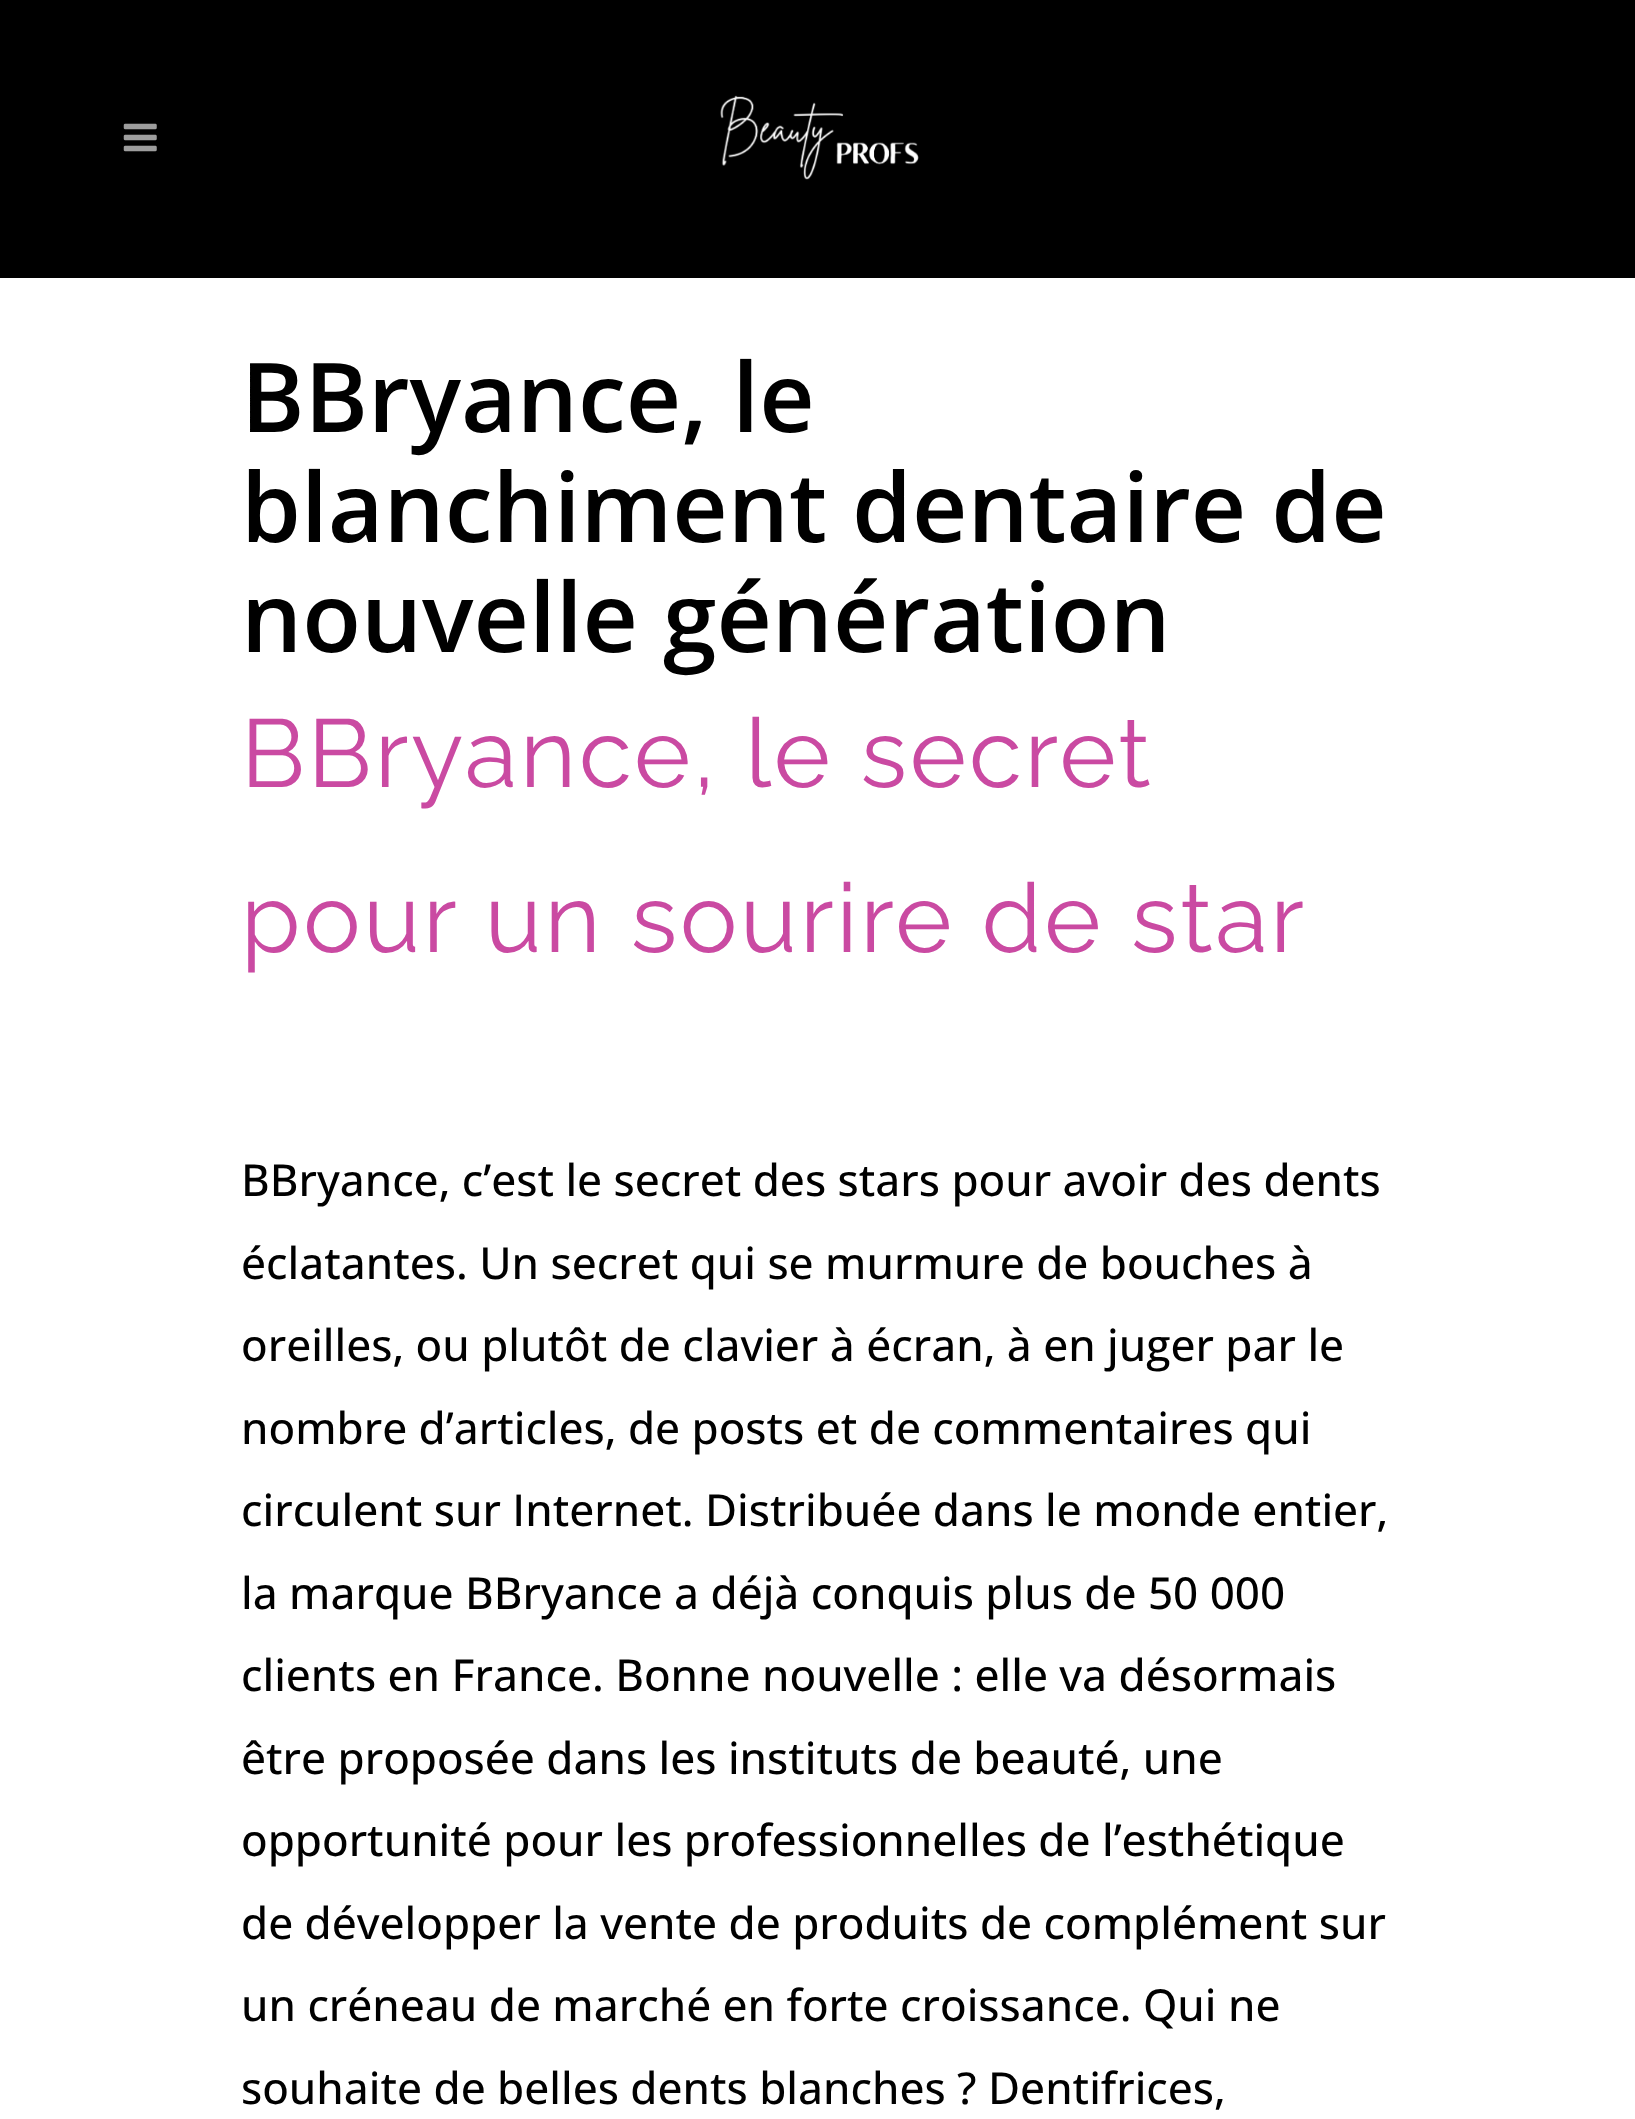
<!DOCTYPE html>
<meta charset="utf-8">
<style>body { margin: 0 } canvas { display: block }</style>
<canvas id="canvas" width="1635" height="2119"></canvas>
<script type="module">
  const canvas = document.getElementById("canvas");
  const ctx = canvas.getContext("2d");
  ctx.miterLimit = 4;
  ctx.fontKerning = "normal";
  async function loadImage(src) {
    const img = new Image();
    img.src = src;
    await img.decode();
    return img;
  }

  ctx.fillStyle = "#ffffff";
  ctx.fillRect(0, 0, 1635, 2119);
  ctx.fillStyle = "#000000";
  ctx.fillRect(0, 0, 1635, 278);
  ctx.drawImage(await loadImage("img1.png"), 123, 123, 34, 29);
  ctx.drawImage(await loadImage("img2.png"), 720, 95, 199, 85);
  ctx.font = "600 96.25px Open Sans";
  ctx.fillText("BBryance, le", 241, 432);
  ctx.fillText("blanchiment dentaire de", 241, 542);
  ctx.fillText("nouvelle génération", 241, 652);
  ctx.letterSpacing = "2.75px";
  ctx.font = "100 96.25px Raleway";
  ctx.fillStyle = "#ca4aa2";
  ctx.fillText("BBryance, le secret", 241, 787);
  ctx.fillText("pour un sourire de star", 241, 952);
  ctx.letterSpacing = "0px";
  ctx.font = "500 44px Open Sans";
  ctx.fillStyle = "#000000";
  ctx.fillText("BBryance, c’est le secret des stars pour avoir des dents", 241, 1196);
  ctx.fillText("éclatantes. Un secret qui se murmure de bouches à", 241, 1279);
  ctx.fillText("oreilles, ou plutôt de clavier à écran, à en juger par le", 241, 1361);
  ctx.fillText("nombre d’articles, de posts et de commentaires qui", 241, 1444);
  ctx.fillText("circulent sur Internet. Distribuée dans le monde entier,", 241, 1526);
  ctx.fillText("la marque BBryance a déjà conquis plus de 50 000", 241, 1609);
  ctx.fillText("clients en France. Bonne nouvelle : elle va désormais", 241, 1691);
  ctx.fillText("être proposée dans les instituts de beauté, une", 241, 1774);
  ctx.fillText("opportunité pour les professionnelles de l’esthétique", 241, 1856);
  ctx.fillText("de développer la vente de produits de complément sur", 241, 1939);
  ctx.fillText("un créneau de marché en forte croissance. Qui ne", 241, 2021);
  ctx.fillText("souhaite de belles dents blanches ? Dentifrices,", 241, 2104);
</script>
